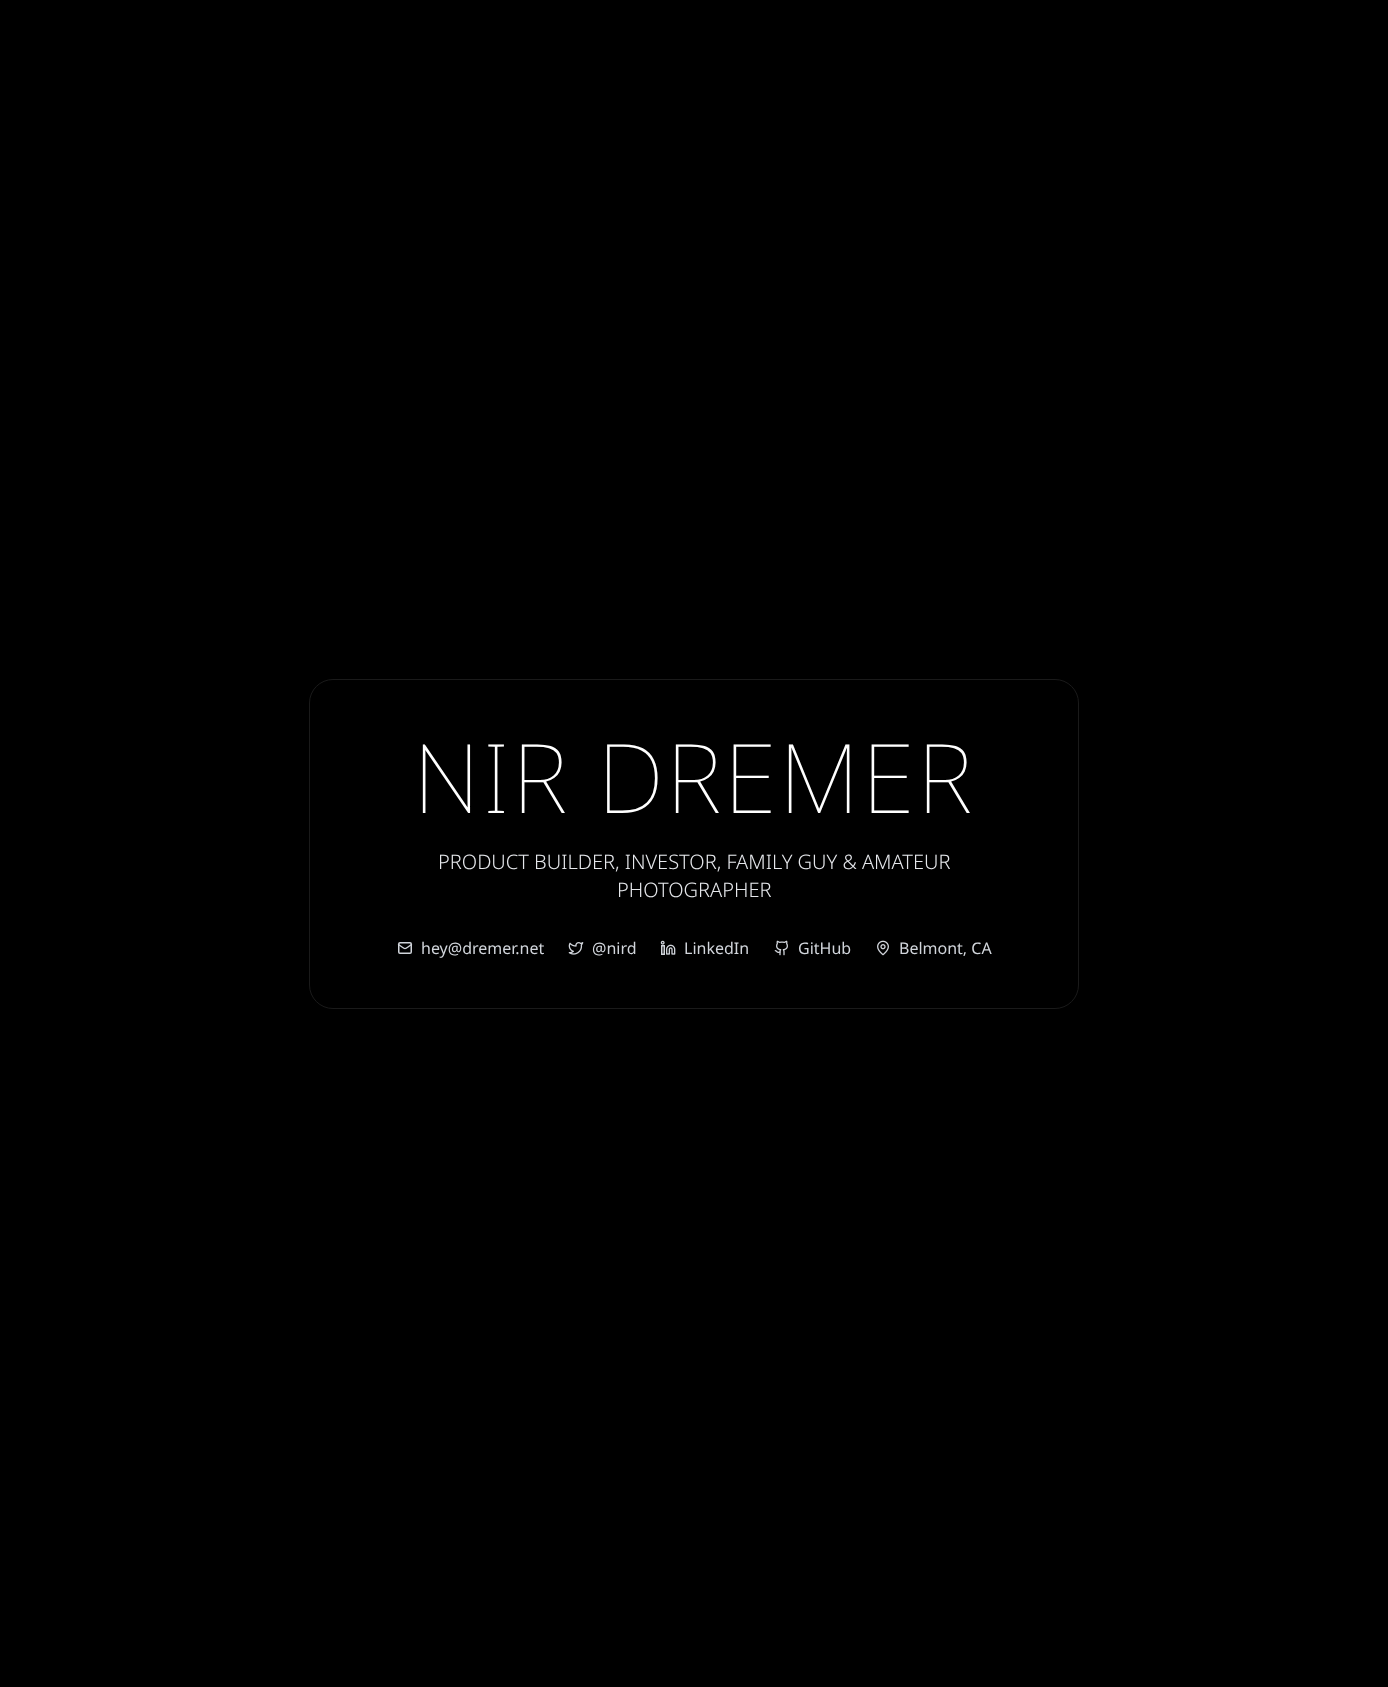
<!DOCTYPE html>
<meta charset="utf-8">
<style>body { margin: 0 } canvas { display: block }</style>
<canvas id="canvas" width="1388" height="1687"></canvas>
<script type="module">
  const canvas = document.getElementById("canvas");
  const ctx = canvas.getContext("2d");
  ctx.miterLimit = 4;
  ctx.fontKerning = "normal";
  async function loadImage(src) {
    const img = new Image();
    img.src = src;
    await img.decode();
    return img;
  }

  ctx.fillStyle = "#000000";
  ctx.fillRect(0, 0, 1388, 1687);
  ctx.beginPath();
  ctx.roundRect(309.5, 679.5, 769, 329, 23.5);
  ctx.strokeStyle = "#1a1a1a";
  ctx.stroke();
  ctx.letterSpacing = "2.4px";
  ctx.font = "100 96px Noto Sans";
  ctx.fillStyle = "#ffffff";
  ctx.fillText("NIR DREMER", 413, 813);
  ctx.letterSpacing = "0px";
  ctx.font = "300 20px Noto Sans";
  ctx.fillStyle = "#e5e7eb";
  ctx.fillText("PRODUCT BUILDER, INVESTOR, FAMILY GUY & AMATEUR", 438, 869);
  ctx.fillText("PHOTOGRAPHER", 617, 897);
  ctx.beginPath();
  ctx.roundRect(398.75, 942.75, 12.5, 10.5, 1.25);
  ctx.strokeStyle = "#d1d5db";
  ctx.lineWidth = 1.5;
  ctx.stroke();
  ctx.beginPath();
  ctx.moveTo(411.5, 944.5);
  ctx.bezierCurveTo(403.5, 950, 406.5, 950, 398.5, 944.5);
  ctx.lineWidth = 1.3;
  ctx.lineCap = "round";
  ctx.lineJoin = "round";
  ctx.stroke();
  ctx.font = "16px Noto Sans";
  ctx.fillStyle = "#d1d5db";
  ctx.fillText("hey@dremer.net", 421, 954);
  ctx.drawImage(await loadImage("img1.png"), 568, 942, 16, 13);
  ctx.fillText("@nird", 592, 954);
  ctx.drawImage(await loadImage("img2.png"), 660, 940, 16, 15);
  ctx.fillText("LinkedIn", 684, 954);
  ctx.drawImage(await loadImage("img3.png"), 774, 940, 14, 16);
  ctx.fillText("GitHub", 798, 954);
  ctx.drawImage(await loadImage("img4.png"), 877, 940, 12, 16);
  ctx.fillText("Belmont, CA", 899, 954);
</script>
